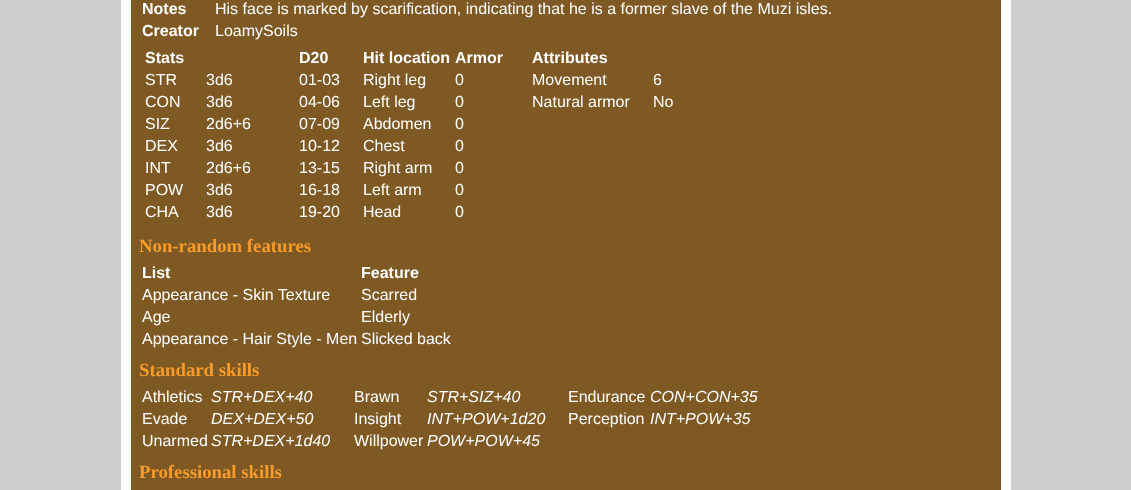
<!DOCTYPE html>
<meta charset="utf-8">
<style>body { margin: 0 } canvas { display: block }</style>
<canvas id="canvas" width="1131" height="490"></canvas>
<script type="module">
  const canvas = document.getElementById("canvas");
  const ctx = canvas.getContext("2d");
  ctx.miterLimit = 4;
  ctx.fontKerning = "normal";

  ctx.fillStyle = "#cecece";
  ctx.fillRect(0, 0, 1131, 490);
  ctx.fillStyle = "#ffffff";
  ctx.fillRect(121, 0, 890, 490);
  ctx.fillStyle = "#7f5924";
  ctx.fillRect(131, 0, 870, 490);
  ctx.font = "bold 16px Liberation Sans";
  ctx.fillStyle = "#ffffff";
  ctx.fillText("Notes", 142, 14);
  ctx.font = "16px Liberation Sans";
  ctx.fillText("His face is marked by scarification, indicating that he is a former slave of the Muzi isles.", 215, 14);
  ctx.font = "bold 16px Liberation Sans";
  ctx.fillText("Creator", 142, 36);
  ctx.font = "16px Liberation Sans";
  ctx.fillText("LoamySoils", 215, 36);
  ctx.font = "bold 16px Liberation Sans";
  ctx.fillText("Stats", 145, 63);
  ctx.font = "16px Liberation Sans";
  ctx.fillText("STR", 145, 85);
  ctx.fillText("3d6", 206, 85);
  ctx.fillText("CON", 145, 107);
  ctx.fillText("3d6", 206, 107);
  ctx.fillText("SIZ", 145, 129);
  ctx.fillText("2d6+6", 206, 129);
  ctx.fillText("DEX", 145, 151);
  ctx.fillText("3d6", 206, 151);
  ctx.fillText("INT", 145, 173);
  ctx.fillText("2d6+6", 206, 173);
  ctx.fillText("POW", 145, 195);
  ctx.fillText("3d6", 206, 195);
  ctx.fillText("CHA", 145, 217);
  ctx.fillText("3d6", 206, 217);
  ctx.font = "bold 16px Liberation Sans";
  ctx.fillText("D20", 299, 63);
  ctx.fillText("Hit location", 363, 63);
  ctx.fillText("Armor", 455, 63);
  ctx.font = "16px Liberation Sans";
  ctx.fillText("01-03", 299, 85);
  ctx.fillText("Right leg", 363, 85);
  ctx.fillText("0", 455, 85);
  ctx.fillText("04-06", 299, 107);
  ctx.fillText("Left leg", 363, 107);
  ctx.fillText("0", 455, 107);
  ctx.fillText("07-09", 299, 129);
  ctx.fillText("Abdomen", 363, 129);
  ctx.fillText("0", 455, 129);
  ctx.fillText("10-12", 299, 151);
  ctx.fillText("Chest", 363, 151);
  ctx.fillText("0", 455, 151);
  ctx.fillText("13-15", 299, 173);
  ctx.fillText("Right arm", 363, 173);
  ctx.fillText("0", 455, 173);
  ctx.fillText("16-18", 299, 195);
  ctx.fillText("Left arm", 363, 195);
  ctx.fillText("0", 455, 195);
  ctx.fillText("19-20", 299, 217);
  ctx.fillText("Head", 363, 217);
  ctx.fillText("0", 455, 217);
  ctx.font = "bold 16px Liberation Sans";
  ctx.fillText("Attributes", 532, 63);
  ctx.font = "16px Liberation Sans";
  ctx.fillText("Movement", 532, 85);
  ctx.fillText("6", 653, 85);
  ctx.fillText("Natural armor", 532, 107);
  ctx.fillText("No", 653, 107);
  ctx.font = "bold 18.75px Liberation Serif";
  ctx.fillStyle = "#f99c2a";
  ctx.fillText("Non-random features", 139, 252);
  ctx.font = "bold 16px Liberation Sans";
  ctx.fillStyle = "#ffffff";
  ctx.fillText("List", 142, 278);
  ctx.fillText("Feature", 361, 278);
  ctx.font = "16px Liberation Sans";
  ctx.fillText("Appearance - Skin Texture", 142, 300);
  ctx.fillText("Scarred", 361, 300);
  ctx.fillText("Age", 142, 322);
  ctx.fillText("Elderly", 361, 322);
  ctx.fillText("Appearance - Hair Style - Men", 142, 344);
  ctx.fillText("Slicked back", 361, 344);
  ctx.font = "bold 18.75px Liberation Serif";
  ctx.fillStyle = "#f99c2a";
  ctx.fillText("Standard skills", 139, 376);
  ctx.font = "16px Liberation Sans";
  ctx.fillStyle = "#ffffff";
  ctx.fillText("Athletics", 142, 402);
  ctx.font = "italic 16px Liberation Sans";
  ctx.fillText("STR+DEX+40", 211, 402);
  ctx.font = "16px Liberation Sans";
  ctx.fillText("Brawn", 354, 402);
  ctx.font = "italic 16px Liberation Sans";
  ctx.fillText("STR+SIZ+40", 427, 402);
  ctx.font = "16px Liberation Sans";
  ctx.fillText("Endurance", 568, 402);
  ctx.font = "italic 16px Liberation Sans";
  ctx.fillText("CON+CON+35", 650, 402);
  ctx.font = "16px Liberation Sans";
  ctx.fillText("Evade", 142, 424);
  ctx.font = "italic 16px Liberation Sans";
  ctx.fillText("DEX+DEX+50", 211, 424);
  ctx.font = "16px Liberation Sans";
  ctx.fillText("Insight", 354, 424);
  ctx.font = "italic 16px Liberation Sans";
  ctx.fillText("INT+POW+1d20", 427, 424);
  ctx.font = "16px Liberation Sans";
  ctx.fillText("Perception", 568, 424);
  ctx.font = "italic 16px Liberation Sans";
  ctx.fillText("INT+POW+35", 650, 424);
  ctx.font = "16px Liberation Sans";
  ctx.fillText("Unarmed", 142, 446);
  ctx.font = "italic 16px Liberation Sans";
  ctx.fillText("STR+DEX+1d40", 211, 446);
  ctx.font = "16px Liberation Sans";
  ctx.fillText("Willpower", 354, 446);
  ctx.font = "italic 16px Liberation Sans";
  ctx.fillText("POW+POW+45", 427, 446);
  ctx.font = "bold 18.75px Liberation Serif";
  ctx.fillStyle = "#f99c2a";
  ctx.fillText("Professional skills", 139, 478);
</script>
